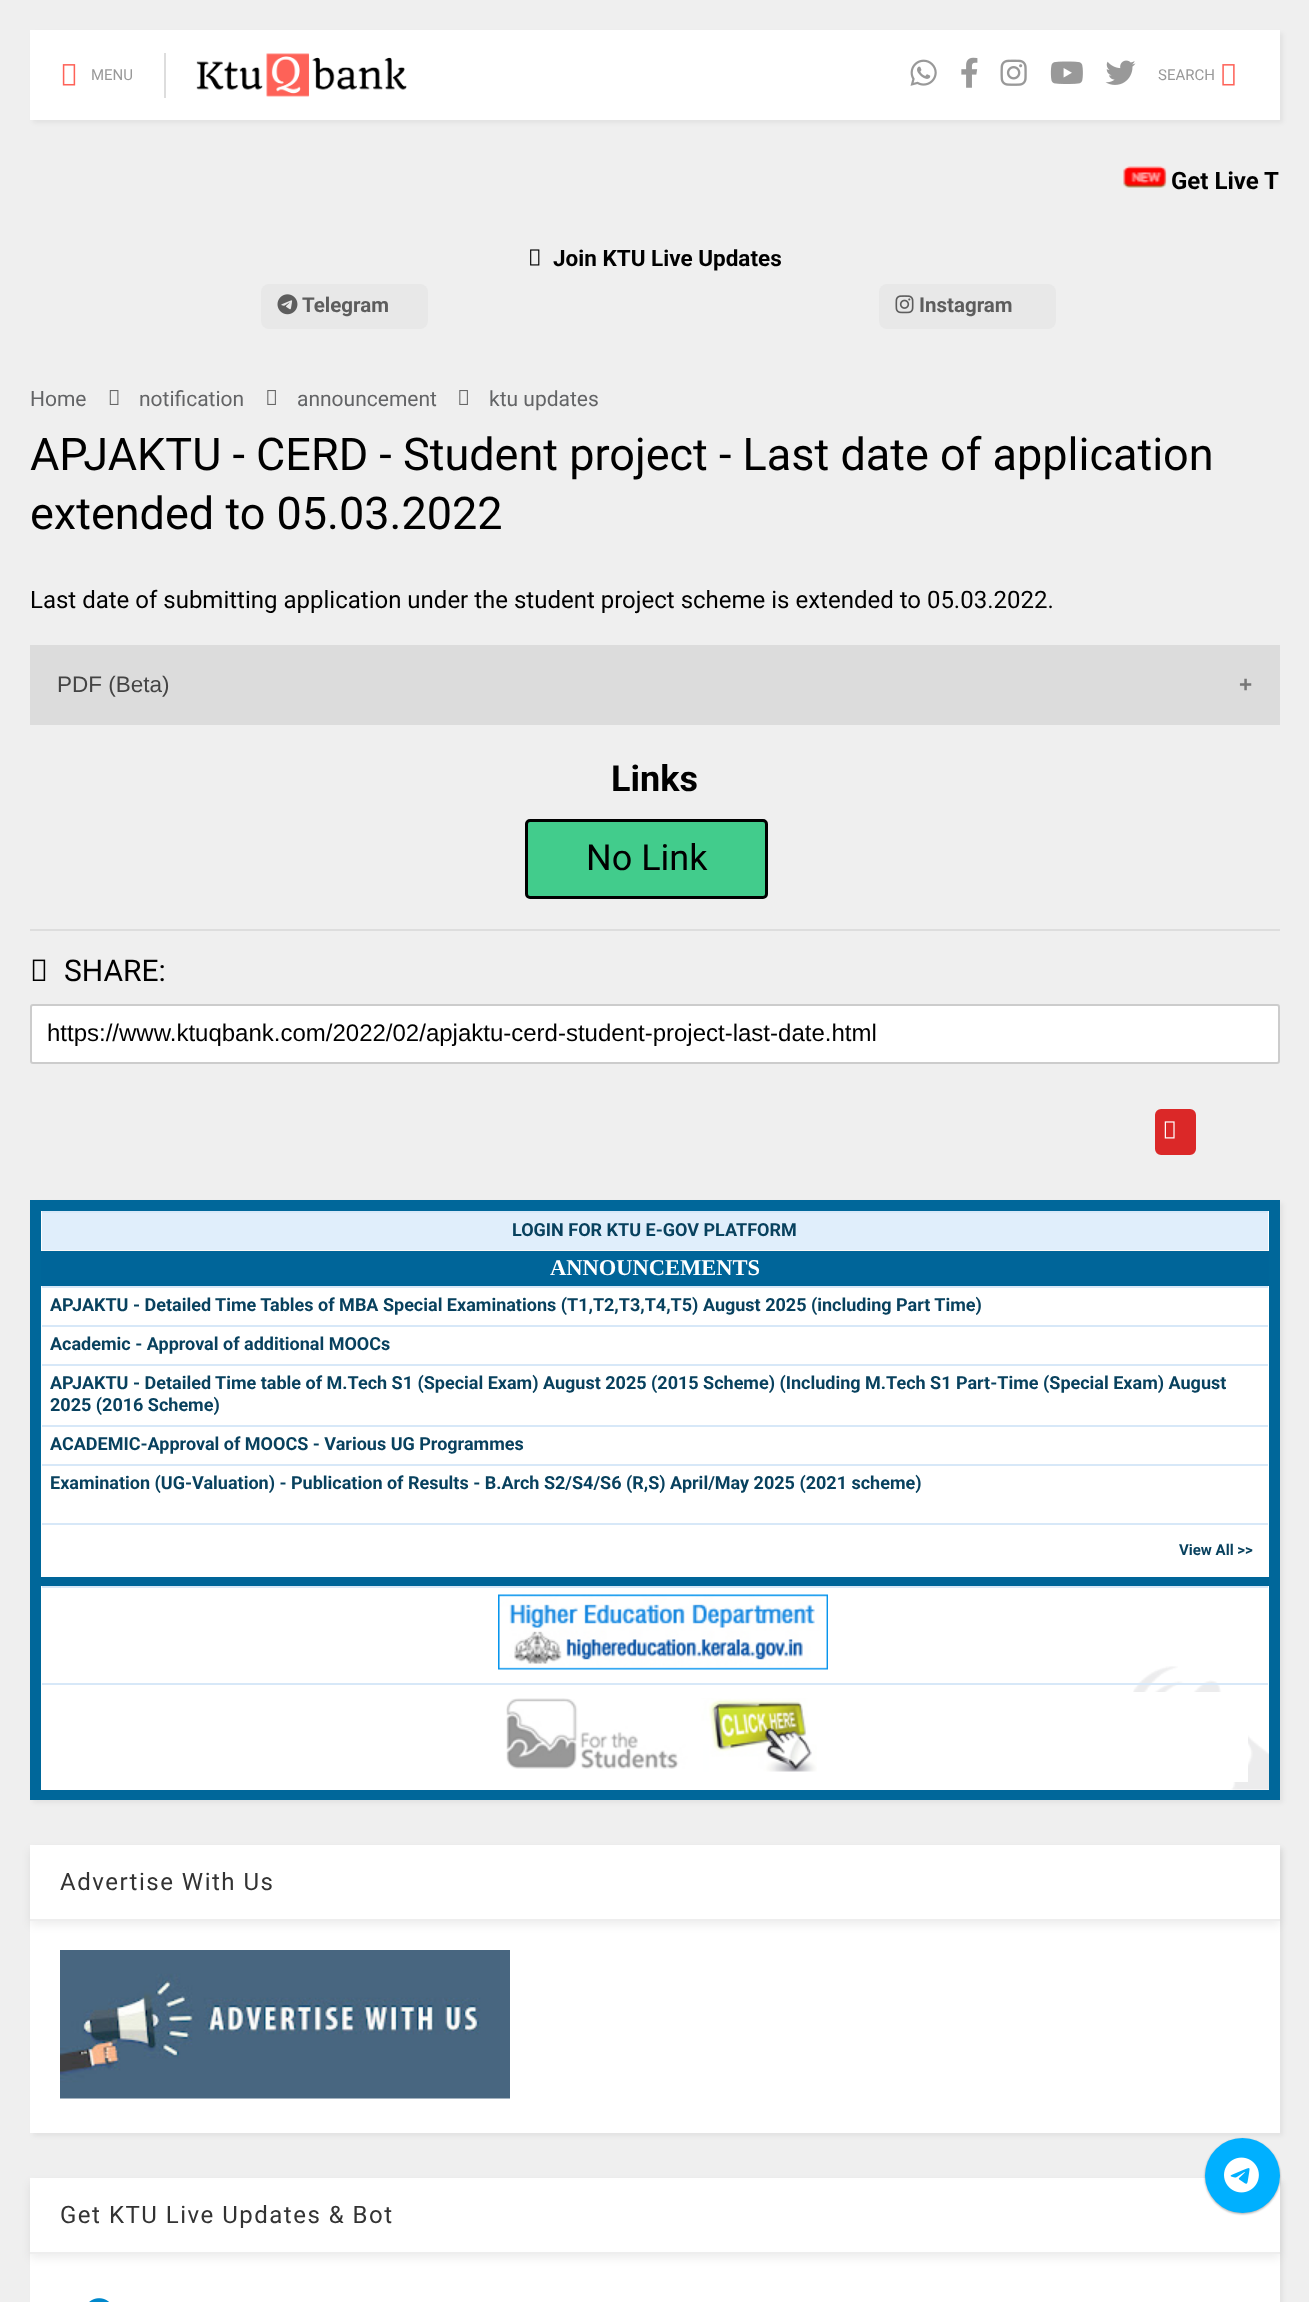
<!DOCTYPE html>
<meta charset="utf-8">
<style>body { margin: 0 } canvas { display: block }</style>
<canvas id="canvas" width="1309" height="2302"></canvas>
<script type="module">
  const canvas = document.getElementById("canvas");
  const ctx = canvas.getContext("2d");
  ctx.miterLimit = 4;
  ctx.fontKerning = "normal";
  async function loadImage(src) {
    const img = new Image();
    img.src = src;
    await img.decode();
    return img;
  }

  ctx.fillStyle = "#efefef";
  ctx.fillRect(0, 0, 1309, 2302);
  ctx.fillStyle = "rgba(0, 0, 0, 0.05)";
  ctx.filter = "blur(2px)";
  ctx.beginPath();
  ctx.rect(33, 33, 1250, 90);
  ctx.fill();
  ctx.filter = "none";
  ctx.fillStyle = "#ffffff";
  ctx.fillRect(30, 30, 1250, 90);
  ctx.drawImage(await loadImage("img1.png"), 62, 64, 14, 22);
  ctx.font = "15px Roboto";
  ctx.fillStyle = "#999999";
  ctx.fillText("MENU", 91, 80);
  ctx.fillStyle = "#dddddd";
  ctx.fillRect(164, 53, 2, 45);
  ctx.drawImage(await loadImage("img2.png"), 196, 53, 211, 44);
  ctx.drawImage(await loadImage("img3.png"), 910, 59, 27, 27);
  ctx.drawImage(await loadImage("img4.png"), 961, 57, 17, 31);
  ctx.drawImage(await loadImage("img5.png"), 1000, 59, 27, 27);
  ctx.drawImage(await loadImage("img6.png"), 1050, 61, 33, 23);
  ctx.drawImage(await loadImage("img7.png"), 1105, 60, 31, 25);
  ctx.fillStyle = "#999999";
  ctx.fillText("SEARCH", 1158, 80);
  ctx.drawImage(await loadImage("img8.png"), 1222, 64, 13, 22);
  ctx.drawImage(await loadImage("img9.png"), 1123, 166, 44, 22);
  ctx.font = "bold 24px Roboto";
  ctx.fillStyle = "#000000";
  ctx.fillText("Get Live T", 1171, 189);
  ctx.drawImage(await loadImage("img10.png"), 530, 249, 10, 17);
  ctx.font = "bold 22.5px Roboto";
  ctx.fillText("Join KTU Live Updates", 553, 266);
  ctx.fillStyle = "#e8e8e8";
  ctx.beginPath();
  ctx.roundRect(261, 284, 167, 45, 8);
  ctx.fill();
  ctx.drawImage(await loadImage("img11.png"), 277, 294, 21, 21);
  ctx.font = "bold 20.5px Roboto";
  ctx.fillStyle = "#5d5d5d";
  ctx.fillText("Telegram", 302, 312);
  ctx.fillStyle = "#e8e8e8";
  ctx.beginPath();
  ctx.roundRect(879, 284, 177, 45, 8);
  ctx.fill();
  ctx.drawImage(await loadImage("img12.png"), 895, 295, 19, 19);
  ctx.fillStyle = "#5d5d5d";
  ctx.fillText("Instagram", 919, 312);
  ctx.fillStyle = "rgba(0, 0, 0, 0.05)";
  ctx.filter = "blur(2px)";
  ctx.beginPath();
  ctx.rect(33, 2181, 1250, 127);
  ctx.fill();
  ctx.filter = "none";
  ctx.fillStyle = "#ffffff";
  ctx.fillRect(30, 2178, 1250, 124);
  ctx.fillStyle = "rgba(0, 0, 0, 0.24)";
  ctx.filter = "blur(1px)";
  ctx.beginPath();
  ctx.roundRect(1205, 2139, 75, 75, 37.5);
  ctx.fill();
  ctx.filter = "none";
  ctx.fillStyle = "rgba(0, 0, 0, 0.12)";
  ctx.filter = "blur(1px)";
  ctx.beginPath();
  ctx.roundRect(1205, 2139, 75, 75, 37.5);
  ctx.fill();
  ctx.filter = "none";
  ctx.fillStyle = "rgba(0, 0, 0, 0.05)";
  ctx.filter = "blur(2px)";
  ctx.beginPath();
  ctx.rect(33, 1848, 1250, 288);
  ctx.fill();
  ctx.filter = "none";
  ctx.save();
  ctx.beginPath();
  ctx.moveTo(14, 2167);
  ctx.lineTo(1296, 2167);
  ctx.lineTo(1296, 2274);
  ctx.lineTo(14, 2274);
  ctx.closePath();
  ctx.moveTo(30, 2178);
  ctx.lineTo(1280, 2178);
  ctx.lineTo(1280, 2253);
  ctx.lineTo(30, 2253);
  ctx.closePath();
  ctx.clip("evenodd");
  ctx.fillStyle = "rgba(0, 0, 0, 0.07)";
  ctx.filter = "blur(5px)";
  ctx.beginPath();
  ctx.rect(30, 2183, 1250, 75);
  ctx.fill();
  ctx.filter = "none";
  ctx.restore();
  ctx.fillStyle = "#00b0ff";
  ctx.beginPath();
  ctx.arc(1242.5, 2175.5, 37.5, 0, Math.PI * 2);
  ctx.fill();
  ctx.drawImage(await loadImage("img13.png"), 1224, 2157, 35, 36);
  ctx.font = "21px Roboto";
  ctx.fillStyle = "#636466";
  ctx.fillText("Home", 30, 406);
  ctx.drawImage(await loadImage("img14.png"), 109, 390, 10, 15);
  ctx.fillText("notification", 139, 406);
  ctx.drawImage(await loadImage("img15.png"), 267, 390, 9, 15);
  ctx.fillText("announcement", 297, 406);
  ctx.drawImage(await loadImage("img15.png"), 459, 390, 9, 15);
  ctx.fillText("ktu updates", 489, 406);
  ctx.font = "45px Roboto";
  ctx.fillStyle = "#000000";
  ctx.fillText("APJAKTU - CERD - Student project - Last date of application", 30, 470);
  ctx.fillText("extended to 05.03.2022", 30, 529);
  ctx.font = "24px Roboto";
  ctx.fillText("Last date of submitting application under the student project scheme is extended to 05.03.2022.", 30, 608);
  ctx.fillStyle = "#dcdcdc";
  ctx.fillRect(30, 645, 1250, 80);
  ctx.font = "22.5px Liberation Sans";
  ctx.fillStyle = "#444444";
  ctx.fillText("PDF (Beta)", 57, 692);
  ctx.font = "bold 22.5px Liberation Sans";
  ctx.fillStyle = "#777777";
  ctx.fillText("+", 1239, 692);
  ctx.font = "bold 36px Roboto";
  ctx.fillStyle = "#000000";
  ctx.fillText("Links", 611, 791);
  ctx.fillStyle = "#42cc8c";
  ctx.beginPath();
  ctx.roundRect(526.5, 820.5, 240, 77, 3.5);
  ctx.fill();
  ctx.strokeStyle = "#000000";
  ctx.lineWidth = 3;
  ctx.stroke();
  ctx.font = "36px Roboto";
  ctx.fillStyle = "#000000";
  ctx.fillText("No Link", 586, 870);
  ctx.fillStyle = "#dddddd";
  ctx.fillRect(30, 929, 1250, 2);
  ctx.drawImage(await loadImage("img16.png"), 32, 959, 14, 22);
  ctx.font = "30px Roboto";
  ctx.fillStyle = "#000000";
  ctx.fillText("SHARE:", 64, 981);
  ctx.fillStyle = "#ffffff";
  ctx.beginPath();
  ctx.roundRect(31, 1005, 1248, 58, 2);
  ctx.fill();
  ctx.strokeStyle = "#cccccc";
  ctx.lineWidth = 2;
  ctx.stroke();
  ctx.font = "24px Liberation Sans";
  ctx.fillStyle = "#000000";
  ctx.fillText("https://www.ktuqbank.com/2022/02/apjaktu-cerd-student-project-last-date.html", 47, 1041);
  ctx.fillStyle = "#db2828";
  ctx.beginPath();
  ctx.roundRect(1156, 1110, 39, 44, 5);
  ctx.fill();
  ctx.strokeStyle = "#db2828";
  ctx.stroke();
  ctx.drawImage(await loadImage("img17.png"), 1164, 1121, 11, 18);
  ctx.fillStyle = "rgba(0, 0, 0, 0.05)";
  ctx.filter = "blur(2px)";
  ctx.beginPath();
  ctx.rect(33, 1203, 1250, 600);
  ctx.fill();
  ctx.filter = "none";
  ctx.strokeStyle = "#00679a";
  ctx.lineWidth = 11;
  ctx.strokeRect(35.5, 1205.5, 1239, 589);
  ctx.fillStyle = "#ffffff";
  ctx.fillRect(41, 1211, 1228, 579);
  ctx.drawImage(await loadImage("img18.png"), 1133, 1666, 136, 124);
  ctx.fillStyle = "#e0eefb";
  ctx.fillRect(42, 1213, 1226, 37);
  ctx.fillStyle = "#d7e8f8";
  ctx.fillRect(42, 1211, 1226, 2);
  ctx.fillStyle = "#f8f8f8";
  ctx.fillRect(42, 1250, 1226, 1);
  ctx.font = "bold 18px Roboto";
  ctx.fillStyle = "#08415e";
  ctx.fillText("LOGIN FOR KTU E-GOV PLATFORM", 512, 1236);
  ctx.fillStyle = "#006599";
  ctx.fillRect(41, 1251, 1228, 35);
  ctx.font = "bold 22.5px Liberation Serif";
  ctx.fillStyle = "#ffffff";
  ctx.fillText("ANNOUNCEMENTS", 550, 1275);
  ctx.fillStyle = "#d7e8f8";
  ctx.fillRect(42, 1286, 1226, 2);
  ctx.font = "bold 18px Roboto";
  ctx.fillStyle = "#08415e";
  ctx.fillText("APJAKTU - Detailed Time Tables of MBA Special Examinations (T1,T2,T3,T4,T5) August 2025 (including Part Time)", 50, 1311);
  ctx.fillStyle = "#d7e8f8";
  ctx.fillRect(42, 1325, 1226, 2);
  ctx.fillStyle = "#08415e";
  ctx.fillText("Academic - Approval of additional MOOCs", 50, 1350);
  ctx.fillStyle = "#d7e8f8";
  ctx.fillRect(42, 1364, 1226, 2);
  ctx.fillStyle = "#08415e";
  ctx.fillText("APJAKTU - Detailed Time table of M.Tech S1 (Special Exam) August 2025 (2015 Scheme) (Including M.Tech S1 Part-Time (Special Exam) August", 50, 1389);
  ctx.fillText("2025 (2016 Scheme)", 50, 1411);
  ctx.fillStyle = "#d7e8f8";
  ctx.fillRect(42, 1425, 1226, 2);
  ctx.fillStyle = "#08415e";
  ctx.fillText("ACADEMIC-Approval of MOOCS - Various UG Programmes", 50, 1450);
  ctx.fillStyle = "#d7e8f8";
  ctx.fillRect(42, 1464, 1226, 2);
  ctx.fillStyle = "#08415e";
  ctx.fillText("Examination (UG-Valuation) - Publication of Results - B.Arch S2/S4/S6 (R,S) April/May 2025 (2021 scheme)", 50, 1489);
  ctx.fillStyle = "#d7e8f8";
  ctx.fillRect(42, 1523, 1226, 2);
  ctx.font = "bold 15px Roboto";
  ctx.fillStyle = "#08415e";
  ctx.fillText("View All >>", 1179, 1555);
  ctx.fillStyle = "#006599";
  ctx.fillRect(41, 1577, 1228, 9);
  ctx.fillStyle = "#d7e8f8";
  ctx.fillRect(42, 1586, 1226, 2);
  ctx.drawImage(await loadImage("img19.png"), 498, 1594, 330, 76);
  ctx.fillRect(42, 1683, 1226, 2);
  ctx.fillStyle = "#ffffff";
  ctx.fillRect(1133, 1692, 115, 90);
  ctx.drawImage(await loadImage("img20.png"), 506, 1698, 311, 74);
  ctx.fillRect(30, 1845, 1250, 288);
  ctx.save();
  ctx.beginPath();
  ctx.moveTo(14, 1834);
  ctx.lineTo(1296, 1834);
  ctx.lineTo(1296, 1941);
  ctx.lineTo(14, 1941);
  ctx.closePath();
  ctx.moveTo(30, 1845);
  ctx.lineTo(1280, 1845);
  ctx.lineTo(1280, 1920);
  ctx.lineTo(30, 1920);
  ctx.closePath();
  ctx.clip("evenodd");
  ctx.fillStyle = "rgba(0, 0, 0, 0.07)";
  ctx.filter = "blur(5px)";
  ctx.beginPath();
  ctx.rect(30, 1850, 1250, 75);
  ctx.fill();
  ctx.filter = "none";
  ctx.restore();
  ctx.fillStyle = "#eeeeee";
  ctx.fillRect(30, 1919, 1250, 2);
  ctx.letterSpacing = "1.5px";
  ctx.font = "24px Roboto";
  ctx.fillStyle = "#333333";
  ctx.fillText("Advertise With Us", 60, 1890);
  ctx.drawImage(await loadImage("img21.png"), 60, 1950, 450, 149);
  ctx.fillStyle = "#eeeeee";
  ctx.fillRect(30, 2252, 1250, 2);
  ctx.fillStyle = "#333333";
  ctx.fillText("Get KTU Live Updates & Bot", 60, 2223);
  ctx.drawImage(await loadImage("img22.png"), 89, 2298, 20, 4);
</script>
